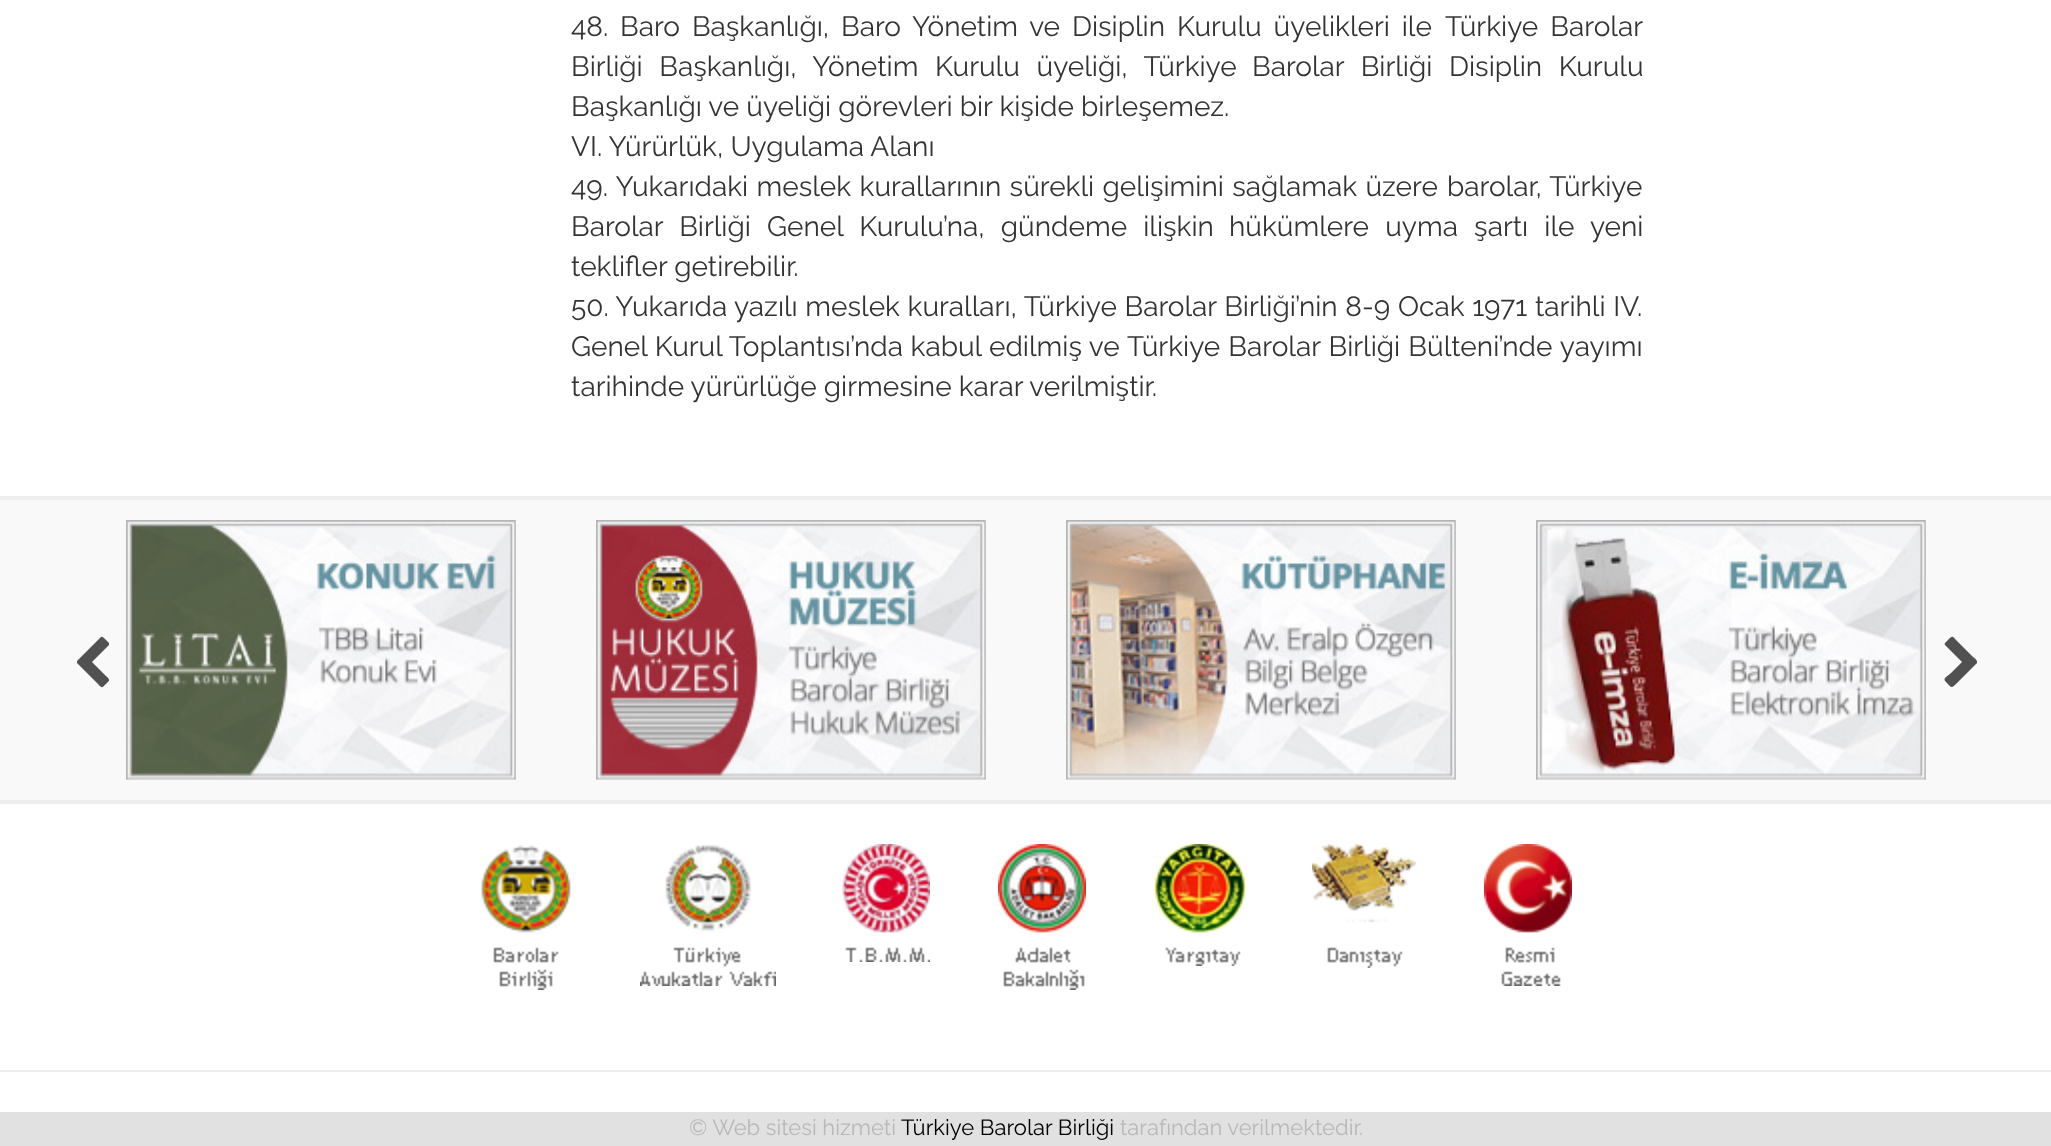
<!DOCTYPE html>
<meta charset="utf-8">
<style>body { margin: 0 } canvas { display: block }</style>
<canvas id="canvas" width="2051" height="1146"></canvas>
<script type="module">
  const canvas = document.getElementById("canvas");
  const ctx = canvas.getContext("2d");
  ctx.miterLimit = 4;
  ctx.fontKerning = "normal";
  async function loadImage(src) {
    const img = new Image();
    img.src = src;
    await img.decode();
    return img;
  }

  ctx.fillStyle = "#ffffff";
  ctx.fillRect(0, 0, 2051, 1146);
  ctx.wordSpacing = "4.75px";
  ctx.font = "28px Raleway";
  ctx.fillStyle = "#333333";
  ctx.fillText("48. Baro Başkanlığı, Baro Yönetim ve Disiplin Kurulu üyelikleri ile", 571, 36);
  ctx.wordSpacing = "5px";
  ctx.fillText("Türkiye Barolar", 1445, 36);
  ctx.wordSpacing = "9.5px";
  ctx.fillText("Birliği Başkanlığı, Yönetim Kurulu üyeliği, Türkiye", 571, 76);
  ctx.fillText("Barolar Birliği Disiplin Kurulu", 1252, 76);
  ctx.wordSpacing = "0px";
  ctx.fillText("Başkanlığı ve üyeliği görevleri bir kişide birleşemez.", 571, 116);
  ctx.fillText("VI. Yürürlük, Uygulama Alanı", 571, 156);
  ctx.wordSpacing = "1.25px";
  ctx.fillText("49. Yukarıdaki meslek kurallarının sürekli gelişimini sağlamak üzere", 571, 196);
  ctx.wordSpacing = "1px";
  ctx.fillText("barolar, Türkiye", 1447, 196);
  ctx.wordSpacing = "9px";
  ctx.fillText("Barolar Birliği Genel Kurulu’na, gündeme ilişkin", 571, 236);
  ctx.fillText("hükümlere uyma şartı ile yeni", 1229, 236);
  ctx.wordSpacing = "0px";
  ctx.fillText("teklifler getirebilir.", 571, 276);
  ctx.wordSpacing = "0.5px";
  ctx.fillText("50. Yukarıda yazılı meslek kuralları, Türkiye Barolar Birliği’nin 8-9", 571, 316);
  ctx.fillText("Ocak 1971 tarihli IV.", 1398, 316);
  ctx.fillText("Genel Kurul Toplantısı’nda kabul edilmiş ve", 571, 356);
  ctx.wordSpacing = "1px";
  ctx.fillText("Türkiye Barolar Birliği Bülteni’nde yayımı", 1127, 356);
  ctx.wordSpacing = "0px";
  ctx.fillText("tarihinde yürürlüğe girmesine karar verilmiştir.", 571, 396);
  ctx.fillStyle = "#f9f9f9";
  ctx.fillRect(0, 500, 2051, 300);
  ctx.fillStyle = "#eeeeee";
  ctx.fillRect(0, 496, 2051, 4);
  ctx.fillRect(0, 800, 2051, 4);
  ctx.drawImage(await loadImage("img1.png"), 126, 520, 390, 260);
  ctx.drawImage(await loadImage("img2.png"), 596, 520, 390, 260);
  ctx.drawImage(await loadImage("img3.png"), 1066, 520, 390, 260);
  ctx.drawImage(await loadImage("img4.png"), 1536, 520, 390, 260);
  ctx.fillStyle = "#515151";
  ctx.beginPath();
  ctx.moveTo(109, 645);
  ctx.lineTo(92, 662);
  ctx.lineTo(106, 676);
  ctx.bezierCurveTo(110, 680, 110, 680, 107, 683);
  ctx.bezierCurveTo(101, 689, 102, 688, 97, 683);
  ctx.lineTo(77, 663);
  ctx.lineTo(77, 661);
  ctx.lineTo(101, 637);
  ctx.bezierCurveTo(102, 636, 104, 638, 105, 639);
  ctx.lineTo(109, 643);
  ctx.bezierCurveTo(109, 644, 109, 645, 109, 645);
  ctx.closePath();
  ctx.fill();
  ctx.beginPath();
  ctx.moveTo(1977, 663);
  ctx.lineTo(1957, 683);
  ctx.bezierCurveTo(1951, 689, 1952, 688, 1946, 682);
  ctx.bezierCurveTo(1942, 678, 1947, 677, 1951, 673);
  ctx.lineTo(1962, 662);
  ctx.lineTo(1945, 645);
  ctx.bezierCurveTo(1944, 643, 1946, 642, 1947, 641);
  ctx.bezierCurveTo(1953, 635, 1952, 636, 1957, 641);
  ctx.lineTo(1973, 657);
  ctx.bezierCurveTo(1973, 657, 1978, 660, 1977, 663);
  ctx.closePath();
  ctx.fill();
  ctx.drawImage(await loadImage("img5.png"), 481, 845, 90, 145);
  ctx.drawImage(await loadImage("img6.png"), 640, 844, 136, 142);
  ctx.drawImage(await loadImage("img7.png"), 842, 844, 88, 118);
  ctx.drawImage(await loadImage("img8.png"), 998, 844, 88, 146);
  ctx.drawImage(await loadImage("img9.png"), 1154, 844, 92, 122);
  ctx.drawImage(await loadImage("img10.png"), 1312, 844, 104, 124);
  ctx.drawImage(await loadImage("img11.png"), 1484, 844, 88, 142);
  ctx.fillStyle = "#eeeeee";
  ctx.fillRect(0, 1070, 2051, 2);
  ctx.fillStyle = "#e1e1e1";
  ctx.fillRect(0, 1112, 2051, 34);
  ctx.font = "22px Raleway";
  ctx.fillStyle = "#b8b8b8";
  ctx.fillText("© Web sitesi hizmeti", 689, 1135);
  ctx.fillStyle = "#000000";
  ctx.fillText("Türkiye Barolar Birliği", 901, 1135);
  ctx.fillStyle = "#b8b8b8";
  ctx.fillText("tarafından verilmektedir.", 1120, 1135);
</script>
